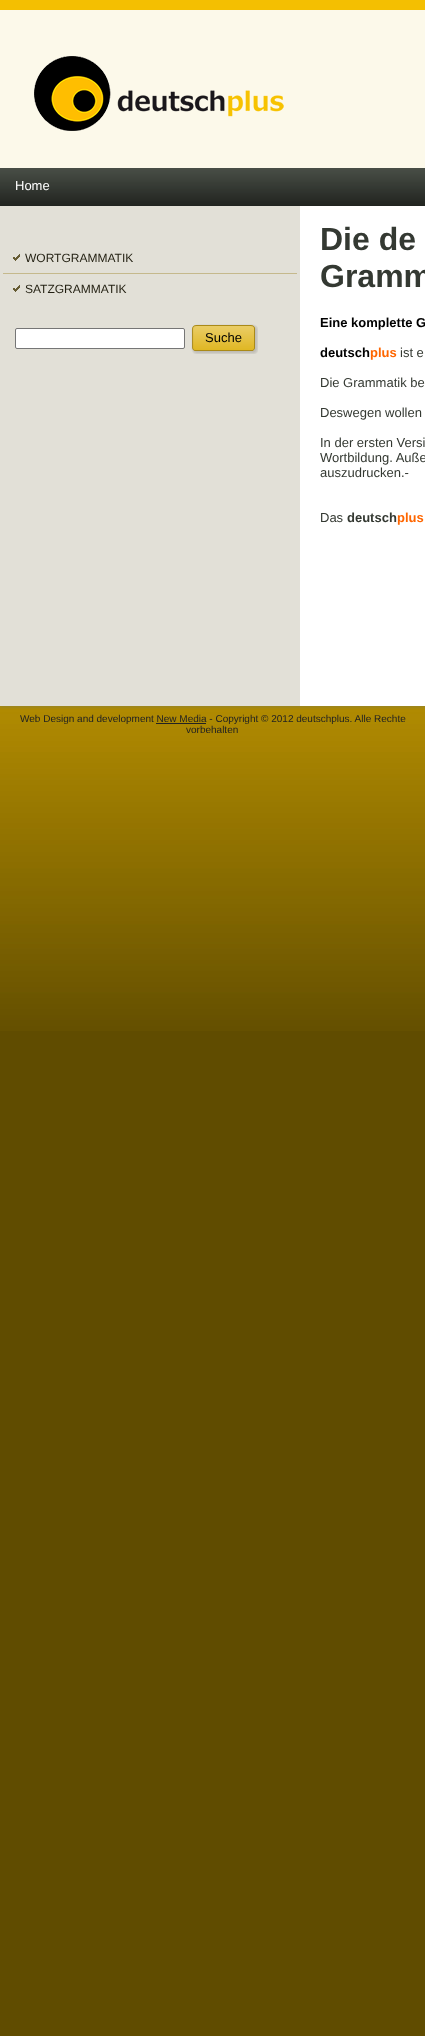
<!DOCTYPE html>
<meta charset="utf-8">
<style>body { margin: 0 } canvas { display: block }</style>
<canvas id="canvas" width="425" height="2036"></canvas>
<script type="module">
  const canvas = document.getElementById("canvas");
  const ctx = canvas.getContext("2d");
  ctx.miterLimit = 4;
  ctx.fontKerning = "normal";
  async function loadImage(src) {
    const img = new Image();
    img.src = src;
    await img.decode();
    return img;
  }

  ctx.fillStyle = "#604c00";
  ctx.fillRect(0, 0, 425, 2036);
  ctx.drawImage(await loadImage("img1.png"), 0, 0, 425, 1031);
  ctx.fillStyle = "#9c861d";
  ctx.filter = "blur(1px)";
  ctx.beginPath();
  ctx.rect(0, 12, 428, 696);
  ctx.fill();
  ctx.filter = "none";
  ctx.fillStyle = "#fcf9ea";
  ctx.fillRect(0, 10, 425, 158);
  ctx.drawImage(await loadImage("img2.png"), 34, 56, 250, 75);
  ctx.drawImage(await loadImage("img3.png"), 0, 168, 425, 38);
  ctx.font = "13px Liberation Sans";
  ctx.fillStyle = "#ffffff";
  ctx.fillText("Home", 15, 190);
  ctx.fillStyle = "#e2e0d7";
  ctx.fillRect(0, 206, 300, 500);
  ctx.drawImage(await loadImage("img4.png"), 13, 254, 7, 7);
  ctx.font = "12px Liberation Sans";
  ctx.fillStyle = "#221f11";
  ctx.fillText("WORTGRAMMATIK", 25, 262);
  ctx.fillStyle = "#c5b98c";
  ctx.fillRect(3, 273, 294, 1);
  ctx.drawImage(await loadImage("img4.png"), 13, 285, 7, 7);
  ctx.fillStyle = "#221f11";
  ctx.fillText("SATZGRAMMATIK", 25, 293);
  ctx.fillStyle = "#ffffff";
  ctx.beginPath();
  ctx.roundRect(15.5, 328.5, 169, 20, 1.5);
  ctx.fill();
  ctx.strokeStyle = "#767676";
  ctx.stroke();
  ctx.drawImage(await loadImage("img5.png"), 191, 324, 57, 30);
  ctx.drawImage(await loadImage("img6.png"), 248, 324, 10, 30);
  ctx.font = "13px Liberation Sans";
  ctx.fillStyle = "#000000";
  ctx.fillText("Suche", 205, 342);
  ctx.fillStyle = "#ffffff";
  ctx.fillRect(300, 206, 125, 500);
  ctx.font = "bold 32px Liberation Sans";
  ctx.fillStyle = "#343932";
  ctx.fillText("Die de", 320, 250);
  ctx.fillText("Gramm", 320, 287);
  ctx.font = "bold 13px Liberation Sans";
  ctx.fillStyle = "#000000";
  ctx.fillText("Eine komplette G", 320, 327);
  ctx.fillText("deutsch", 320, 357);
  ctx.fillStyle = "#ff6600";
  ctx.fillText("plus", 370, 357);
  ctx.font = "13px Liberation Sans";
  ctx.fillStyle = "#343932";
  ctx.fillText("ist e", 400, 357);
  ctx.fillText("Die Grammatik be", 320, 387);
  ctx.fillText("Deswegen wollen", 320, 417);
  ctx.fillText("In der ersten Versi", 320, 447);
  ctx.fillText("Wortbildung. Auße", 320, 462);
  ctx.fillText("auszudrucken.-", 320, 477);
  ctx.fillText("Das", 320, 522);
  ctx.font = "bold 13px Liberation Sans";
  ctx.fillText("deutsch", 347, 522);
  ctx.fillStyle = "#ff6600";
  ctx.fillText("plus", 397, 522);
  ctx.font = "10px Liberation Sans";
  ctx.fillStyle = "#222222";
  ctx.fillText("Web Design and development New Media - Copyright © 2012 deutschplus. Alle Rechte", 20, 722);
  ctx.fillRect(156, 723, 50, 1);
  ctx.fillText("vorbehalten", 186, 733);
</script>
